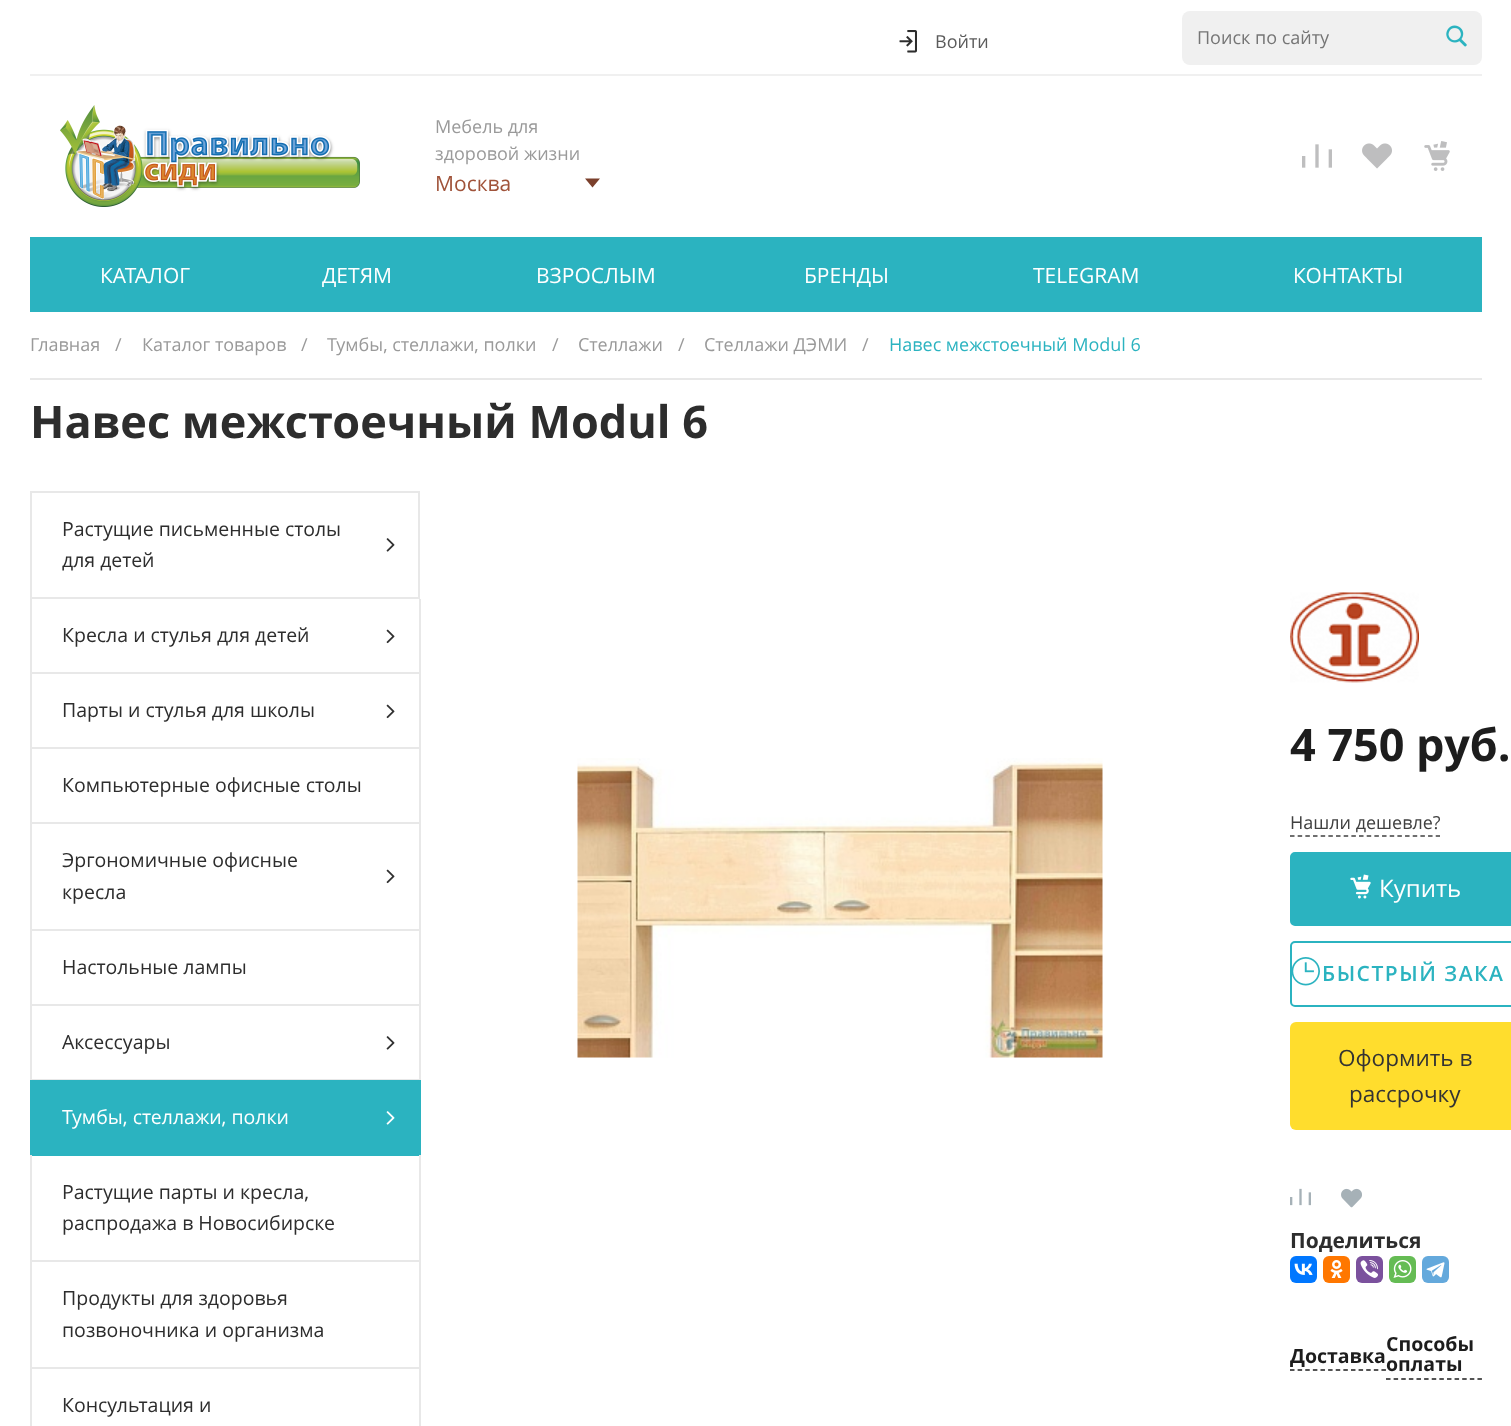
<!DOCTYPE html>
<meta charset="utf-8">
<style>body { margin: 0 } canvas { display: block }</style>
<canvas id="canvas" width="1511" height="1426"></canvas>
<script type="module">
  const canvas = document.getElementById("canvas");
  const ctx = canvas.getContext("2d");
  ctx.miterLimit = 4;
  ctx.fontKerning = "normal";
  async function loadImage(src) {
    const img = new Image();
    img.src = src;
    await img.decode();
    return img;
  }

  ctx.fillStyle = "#ffffff";
  ctx.fillRect(0, 0, 1511, 1426);
  ctx.fillStyle = "#f0f0f0";
  ctx.fillRect(30, 74, 1452, 2);
  ctx.drawImage(await loadImage("img1.png"), 899, 30, 18, 23);
  ctx.font = "18px Open Sans";
  ctx.fillStyle = "#5b5b5b";
  ctx.fillText("Войти", 935, 48);
  ctx.fillStyle = "#f0f0f0";
  ctx.beginPath();
  ctx.roundRect(1182, 11, 300, 54, 8);
  ctx.fill();
  ctx.fillStyle = "#757575";
  ctx.fillText("Поиск по сайту", 1197, 44);
  ctx.drawImage(await loadImage("img2.png"), 1446, 25, 21, 22);
  ctx.drawImage(await loadImage("img3.png"), 60, 105, 300, 102);
  ctx.fillStyle = "#9a9a9a";
  ctx.fillText("Мебель для", 435, 133);
  ctx.fillText("здоровой жизни", 435, 160);
  ctx.font = "21px Open Sans";
  ctx.fillStyle = "#a0533a";
  ctx.fillText("Москва", 435, 191);
  ctx.fillStyle = "#7b402c";
  ctx.beginPath();
  ctx.moveTo(585, 178.5);
  ctx.lineTo(600, 178.5);
  ctx.lineTo(592.5, 187.5);
  ctx.closePath();
  ctx.fill();
  ctx.drawImage(await loadImage("img4.png"), 1302, 144, 30, 24);
  ctx.drawImage(await loadImage("img5.png"), 1362, 143, 30, 26);
  ctx.drawImage(await loadImage("img6.png"), 1424, 141, 26, 30);
  ctx.fillStyle = "#2bb3c0";
  ctx.fillRect(30, 237, 1452, 75);
  ctx.fillStyle = "#ffffff";
  ctx.fillText("КАТАЛОГ", 100, 283);
  ctx.fillText("ДЕТЯМ", 322, 283);
  ctx.fillText("ВЗРОСЛЫМ", 536, 283);
  ctx.fillText("БРЕНДЫ", 804, 283);
  ctx.fillText("TELEGRAM", 1033, 283);
  ctx.fillText("КОНТАКТЫ", 1293, 283);
  ctx.fillStyle = "#e8e8e8";
  ctx.fillRect(30, 378, 1452, 2);
  ctx.font = "18px Open Sans";
  ctx.fillStyle = "#9a9a9a";
  ctx.fillText("Главная", 30, 351);
  ctx.fillText("/", 115, 351);
  ctx.fillText("Каталог товаров", 142, 351);
  ctx.fillText("/", 301, 351);
  ctx.fillText("Тумбы, стеллажи, полки", 327, 351);
  ctx.fillText("/", 552, 351);
  ctx.fillText("Стеллажи", 578, 351);
  ctx.fillText("/", 678, 351);
  ctx.fillText("Стеллажи ДЭМИ", 704, 351);
  ctx.fillText("/", 862, 351);
  ctx.fillStyle = "#2bb3c0";
  ctx.fillText("Навес межстоечный Modul 6", 889, 351);
  ctx.font = "bold 45px Open Sans";
  ctx.fillStyle = "#2d2d2d";
  ctx.fillText("Навес межстоечный Modul 6", 30, 438);
  ctx.strokeStyle = "#e8e8e8";
  ctx.lineWidth = 2;
  ctx.strokeRect(31, 492, 388, 106);
  ctx.font = "19.5px Open Sans";
  ctx.fillText("Растущие письменные столы", 62, 536);
  ctx.drawImage(await loadImage("img7.png"), 386, 538, 9, 14);
  ctx.fillText("для детей", 62, 567);
  ctx.fillStyle = "#e8e8e8";
  ctx.fillRect(419, 599, 2, 331);
  ctx.fillRect(30, 672, 390, 2);
  ctx.fillRect(30, 599, 2, 75);
  ctx.fillStyle = "#2d2d2d";
  ctx.fillText("Кресла и стулья для детей", 62, 642);
  ctx.drawImage(await loadImage("img8.png"), 386, 629, 9, 15);
  ctx.fillStyle = "#e8e8e8";
  ctx.fillRect(30, 747, 390, 2);
  ctx.fillRect(30, 674, 2, 75);
  ctx.fillStyle = "#2d2d2d";
  ctx.fillText("Парты и стулья для школы", 62, 717);
  ctx.drawImage(await loadImage("img8.png"), 386, 704, 9, 15);
  ctx.fillStyle = "#e8e8e8";
  ctx.fillRect(30, 822, 390, 2);
  ctx.fillRect(30, 749, 2, 75);
  ctx.fillStyle = "#2d2d2d";
  ctx.fillText("Компьютерные офисные столы", 62, 792);
  ctx.fillStyle = "#e8e8e8";
  ctx.fillRect(30, 929, 390, 2);
  ctx.fillRect(30, 824, 2, 106);
  ctx.fillStyle = "#2d2d2d";
  ctx.fillText("Эргономичные офисные", 62, 867);
  ctx.drawImage(await loadImage("img8.png"), 386, 869, 9, 15);
  ctx.fillText("кресла", 62, 899);
  ctx.fillStyle = "#e8e8e8";
  ctx.fillRect(419, 930, 2, 75);
  ctx.fillRect(30, 1004, 390, 2);
  ctx.fillRect(30, 930, 2, 75);
  ctx.fillStyle = "#2d2d2d";
  ctx.fillText("Настольные лампы", 62, 974);
  ctx.fillStyle = "#e8e8e8";
  ctx.fillRect(419, 1005, 2, 75);
  ctx.fillRect(30, 1079, 390, 1);
  ctx.fillRect(30, 1005, 2, 75);
  ctx.fillStyle = "#2d2d2d";
  ctx.fillText("Аксессуары", 62, 1049);
  ctx.drawImage(await loadImage("img7.png"), 386, 1036, 9, 14);
  ctx.fillStyle = "#2bb3c0";
  ctx.fillRect(30, 1080, 389, 74);
  ctx.fillRect(419, 1080, 2, 75);
  ctx.fillRect(30, 1154, 390, 2);
  ctx.fillStyle = "#ffffff";
  ctx.fillText("Тумбы, стеллажи, полки", 62, 1124);
  ctx.drawImage(await loadImage("img9.png"), 386, 1111, 9, 14);
  ctx.fillStyle = "#e8e8e8";
  ctx.fillRect(419, 1155, 2, 213);
  ctx.fillRect(30, 1260, 390, 2);
  ctx.fillRect(30, 1155, 2, 107);
  ctx.fillStyle = "#2d2d2d";
  ctx.fillText("Растущие парты и кресла,", 62, 1199);
  ctx.fillText("распродажа в Новосибирске", 62, 1230);
  ctx.fillStyle = "#e8e8e8";
  ctx.fillRect(30, 1367, 390, 2);
  ctx.fillRect(30, 1262, 2, 164);
  ctx.fillStyle = "#2d2d2d";
  ctx.fillText("Продукты для здоровья", 62, 1305);
  ctx.fillText("позвоночника и организма", 62, 1337);
  ctx.fillStyle = "#e8e8e8";
  ctx.fillRect(419, 1368, 2, 58);
  ctx.fillStyle = "#2d2d2d";
  ctx.fillText("Консультация и", 62, 1412);
  ctx.drawImage(await loadImage("img10.png"), 577, 758, 526, 300);
  ctx.drawImage(await loadImage("img11.png"), 1290, 592, 129, 91);
  ctx.font = "bold 45px Open Sans";
  ctx.fillStyle = "#1d1d1d";
  ctx.fillText("4 750 руб.", 1290, 761);
  ctx.beginPath();
  ctx.moveTo(1290, 836);
  ctx.lineTo(1440, 836);
  ctx.strokeStyle = "#404040";
  ctx.lineWidth = 1.5;
  ctx.setLineDash([4.5, 3.17]);
  ctx.stroke();
  ctx.font = "18px Open Sans";
  ctx.fillStyle = "#404040";
  ctx.fillText("Нашли дешевле?", 1290, 829);
  ctx.fillStyle = "#2bb3c0";
  ctx.beginPath();
  ctx.roundRect(1291.5, 853.5, 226, 71, 3.5);
  ctx.fill();
  ctx.strokeStyle = "#2bb3c0";
  ctx.lineWidth = 3;
  ctx.setLineDash([]);
  ctx.stroke();
  ctx.drawImage(await loadImage("img12.png"), 1350, 874, 21, 25);
  ctx.font = "24px Open Sans";
  ctx.fillStyle = "#ffffff";
  ctx.fillText("Купить", 1379, 897);
  ctx.beginPath();
  ctx.roundRect(1291, 942, 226, 64, 4);
  ctx.lineWidth = 2;
  ctx.stroke();
  ctx.drawImage(await loadImage("img13.png"), 1292, 957, 28, 29);
  ctx.letterSpacing = "1.5px";
  ctx.font = "600 21px Open Sans";
  ctx.fillStyle = "#2bb3c0";
  ctx.fillText("БЫСТРЫЙ ЗАКА", 1322, 981);
  ctx.fillStyle = "#ffdd2d";
  ctx.beginPath();
  ctx.roundRect(1290, 1022, 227, 108, 6);
  ctx.fill();
  ctx.letterSpacing = "0px";
  ctx.font = "22.5px Open Sans";
  ctx.fillStyle = "#333333";
  ctx.fillText("Оформить в", 1338, 1066);
  ctx.fillText("рассрочку", 1349, 1102);
  ctx.drawImage(await loadImage("img14.png"), 1290, 1188, 21, 18);
  ctx.drawImage(await loadImage("img15.png"), 1341, 1188, 21, 20);
  ctx.font = "bold 21px Open Sans";
  ctx.fillStyle = "#2d2d2d";
  ctx.fillText("Поделиться", 1290, 1248);
  ctx.fillStyle = "#0077ff";
  ctx.beginPath();
  ctx.roundRect(1290, 1256, 27, 27, 6);
  ctx.fill();
  ctx.drawImage(await loadImage("img16.png"), 1294, 1263, 19, 12);
  ctx.fillStyle = "#ff7700";
  ctx.beginPath();
  ctx.roundRect(1323, 1256, 27, 27, 6);
  ctx.fill();
  ctx.drawImage(await loadImage("img17.png"), 1330, 1260, 13, 18);
  ctx.fillStyle = "#7b519d";
  ctx.beginPath();
  ctx.roundRect(1356, 1256, 27, 27, 6);
  ctx.fill();
  ctx.drawImage(await loadImage("img18.png"), 1360, 1260, 18, 18);
  ctx.fillStyle = "#65bc54";
  ctx.beginPath();
  ctx.roundRect(1389, 1256, 27, 27, 6);
  ctx.fill();
  ctx.drawImage(await loadImage("img19.png"), 1393, 1260, 19, 18);
  ctx.fillStyle = "#64a9dc";
  ctx.beginPath();
  ctx.roundRect(1422, 1256, 27, 27, 6);
  ctx.fill();
  ctx.drawImage(await loadImage("img20.png"), 1426, 1262, 19, 16);
  ctx.beginPath();
  ctx.moveTo(1290, 1370);
  ctx.lineTo(1386, 1370);
  ctx.strokeStyle = "#1d1d1d";
  ctx.lineWidth = 1.5;
  ctx.setLineDash([4.5, 3.12]);
  ctx.stroke();
  ctx.font = "bold 19.5px Open Sans";
  ctx.fillStyle = "#1d1d1d";
  ctx.fillText("Доставка", 1290, 1363);
  ctx.beginPath();
  ctx.moveTo(1386, 1379);
  ctx.lineTo(1482, 1379);
  ctx.stroke();
  ctx.fillText("Способы", 1386, 1351);
  ctx.fillText("оплаты", 1386, 1371);
</script>
